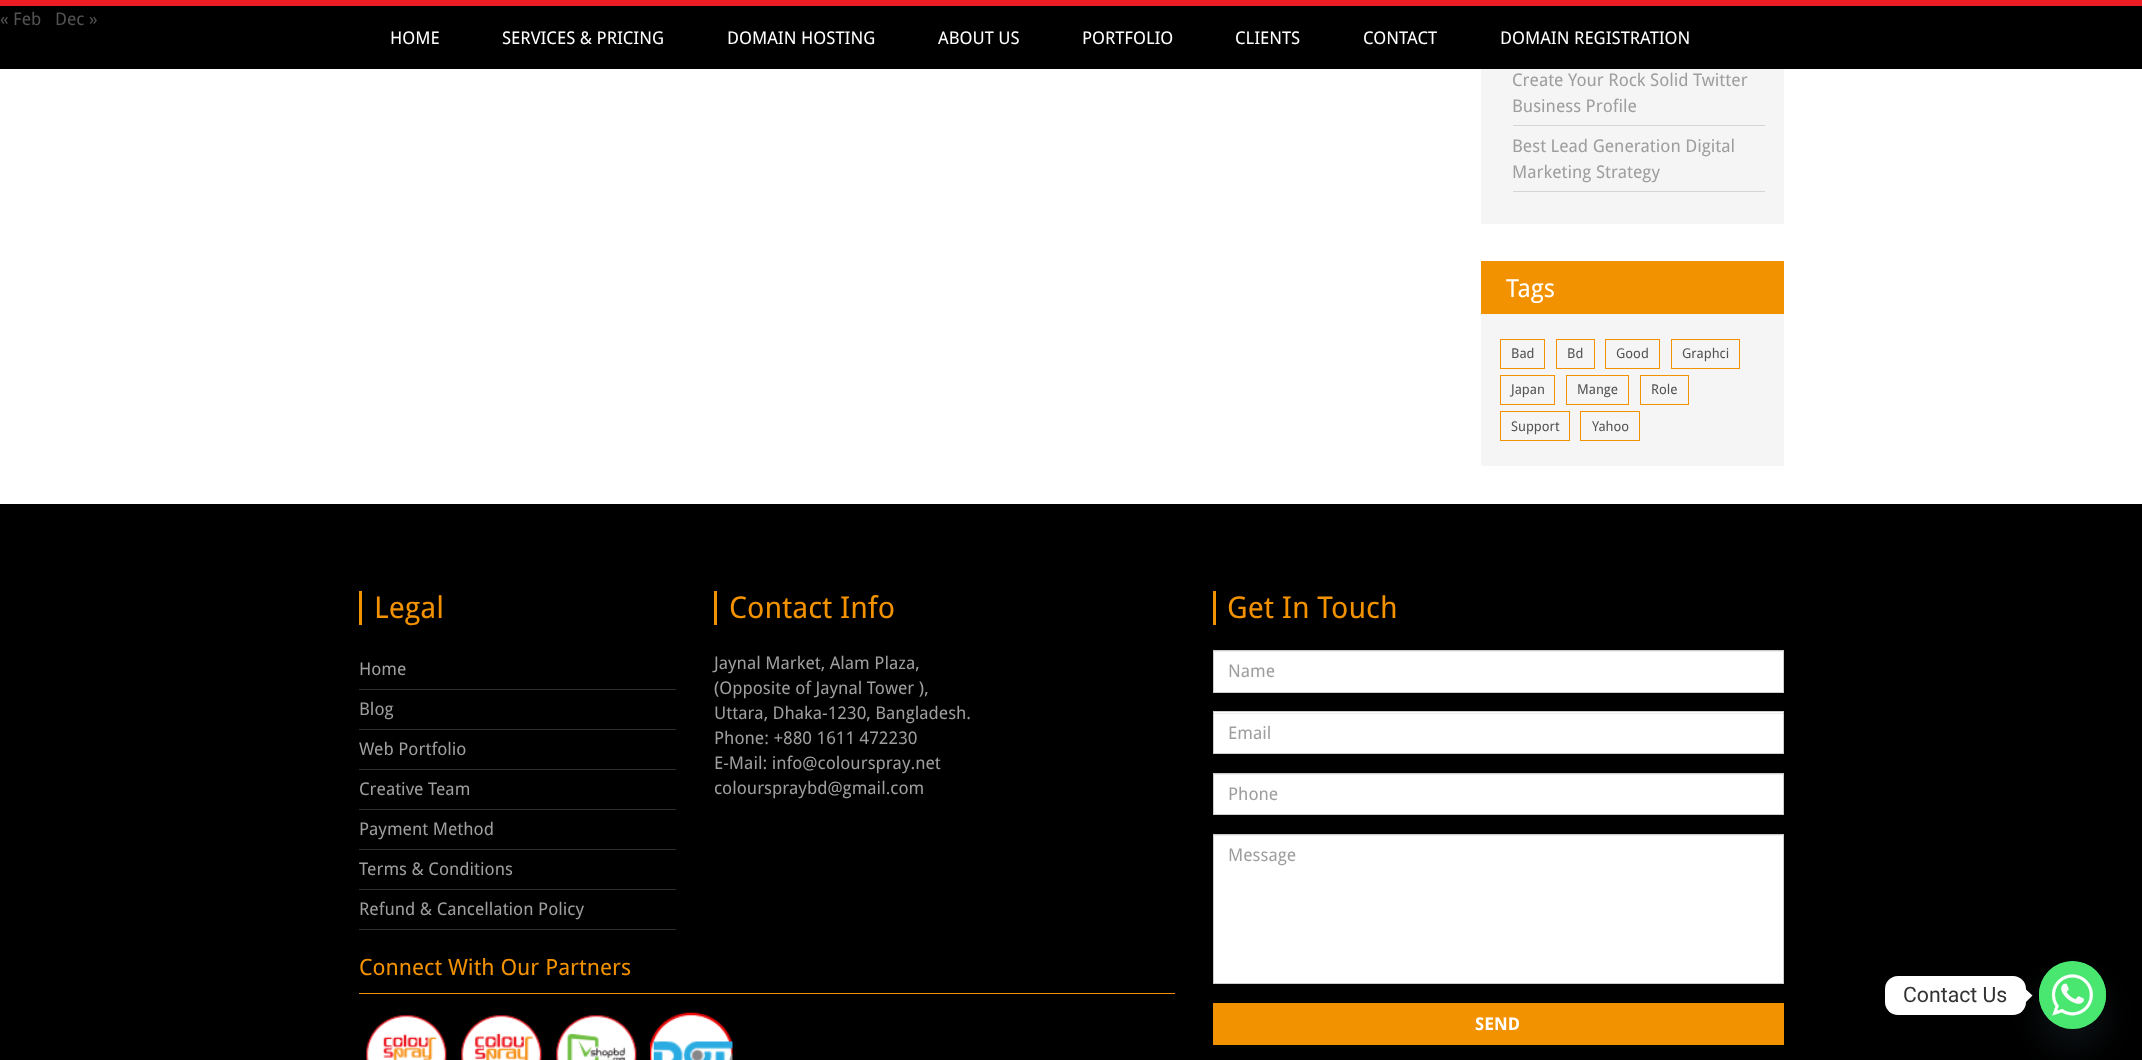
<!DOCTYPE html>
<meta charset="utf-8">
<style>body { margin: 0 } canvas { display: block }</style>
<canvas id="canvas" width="2142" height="1060"></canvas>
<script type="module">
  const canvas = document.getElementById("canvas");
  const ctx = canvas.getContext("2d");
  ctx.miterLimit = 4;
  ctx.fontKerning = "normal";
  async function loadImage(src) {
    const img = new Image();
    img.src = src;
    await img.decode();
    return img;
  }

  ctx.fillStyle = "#ffffff";
  ctx.fillRect(0, 0, 2142, 1060);
  ctx.fillStyle = "#000000";
  ctx.fillRect(0, 6, 2142, 63);
  ctx.font = "17.5px Droid Sans";
  ctx.fillStyle = "#535353";
  ctx.fillText("« Feb", 0, 25);
  ctx.fillText("Dec »", 55, 25);
  ctx.fillStyle = "#f5f5f5";
  ctx.fillRect(1481, 69, 303, 155);
  ctx.fillStyle = "#d5d6d4";
  ctx.fillRect(1513, 125, 252, 1);
  ctx.fillStyle = "#9e9e9e";
  ctx.fillText("Create Your Rock Solid Twitter", 1512, 86);
  ctx.fillText("Business Profile", 1512, 112);
  ctx.fillStyle = "#d5d6d4";
  ctx.fillRect(1513, 191, 252, 1);
  ctx.fillStyle = "#9e9e9e";
  ctx.fillText("Best Lead Generation Digital", 1512, 152);
  ctx.fillText("Marketing Strategy", 1512, 178);
  ctx.fillStyle = "#f5f5f5";
  ctx.fillRect(1481, 314, 303, 152);
  ctx.fillStyle = "#f39200";
  ctx.fillRect(1481, 261, 303, 53);
  ctx.font = "25px Droid Sans";
  ctx.fillStyle = "#ffffff";
  ctx.fillText("Tags", 1506, 297);
  ctx.strokeStyle = "#f39200";
  ctx.strokeRect(1500.5, 339.5, 44, 29);
  ctx.font = "13.5px Droid Sans";
  ctx.fillStyle = "#535353";
  ctx.fillText("Bad", 1511, 358);
  ctx.strokeRect(1556.5, 339.5, 38, 29);
  ctx.fillText("Bd", 1567, 358);
  ctx.strokeRect(1605.5, 339.5, 54, 29);
  ctx.fillText("Good", 1616, 358);
  ctx.strokeRect(1671.5, 339.5, 68, 29);
  ctx.fillText("Graphci", 1682, 358);
  ctx.strokeRect(1500.5, 375.5, 54, 29);
  ctx.fillText("Japan", 1511, 394);
  ctx.strokeRect(1566.5, 375.5, 62, 29);
  ctx.fillText("Mange", 1577, 394);
  ctx.strokeRect(1640.5, 375.5, 48, 29);
  ctx.fillText("Role", 1651, 394);
  ctx.strokeRect(1500.5, 411.5, 69, 29);
  ctx.fillText("Support", 1511, 431);
  ctx.strokeRect(1580.5, 411.5, 59, 29);
  ctx.fillText("Yahoo", 1592, 431);
  ctx.fillStyle = "#ed1c24";
  ctx.fillRect(0, 0, 2142, 6);
  ctx.font = "17.5px Droid Sans";
  ctx.fillStyle = "#ffffff";
  ctx.fillText("HOME", 390, 44);
  ctx.fillText("SERVICES & PRICING", 502, 44);
  ctx.fillText("DOMAIN HOSTING", 727, 44);
  ctx.fillText("ABOUT US", 938, 44);
  ctx.fillText("PORTFOLIO", 1082, 44);
  ctx.fillText("CLIENTS", 1235, 44);
  ctx.fillText("CONTACT", 1363, 44);
  ctx.fillText("DOMAIN REGISTRATION", 1500, 44);
  ctx.fillStyle = "#000000";
  ctx.fillRect(0, 504, 2142, 556);
  ctx.fillStyle = "#f39200";
  ctx.fillRect(359, 591, 3, 34);
  ctx.font = "30px Droid Sans";
  ctx.fillText("Legal", 374, 618);
  ctx.fillStyle = "#2f2e2e";
  ctx.fillRect(359, 689, 317, 1);
  ctx.font = "17.5px Droid Sans";
  ctx.fillStyle = "#9e9e9e";
  ctx.fillText("Home", 359, 675);
  ctx.fillStyle = "#2f2e2e";
  ctx.fillRect(359, 729, 317, 1);
  ctx.fillStyle = "#9e9e9e";
  ctx.fillText("Blog", 359, 715);
  ctx.fillStyle = "#2f2e2e";
  ctx.fillRect(359, 769, 317, 1);
  ctx.fillStyle = "#9e9e9e";
  ctx.fillText("Web Portfolio", 359, 755);
  ctx.fillStyle = "#2f2e2e";
  ctx.fillRect(359, 809, 317, 1);
  ctx.fillStyle = "#9e9e9e";
  ctx.fillText("Creative Team", 359, 795);
  ctx.fillStyle = "#2f2e2e";
  ctx.fillRect(359, 849, 317, 1);
  ctx.fillStyle = "#9e9e9e";
  ctx.fillText("Payment Method", 359, 835);
  ctx.fillStyle = "#2f2e2e";
  ctx.fillRect(359, 889, 317, 1);
  ctx.fillStyle = "#9e9e9e";
  ctx.fillText("Terms & Conditions", 359, 875);
  ctx.fillStyle = "#2f2e2e";
  ctx.fillRect(359, 929, 317, 1);
  ctx.fillStyle = "#9e9e9e";
  ctx.fillText("Refund & Cancellation Policy", 359, 915);
  ctx.fillStyle = "#f39200";
  ctx.fillRect(714, 591, 3, 34);
  ctx.font = "30px Droid Sans";
  ctx.fillText("Contact Info", 729, 618);
  ctx.font = "17.5px Droid Sans";
  ctx.fillStyle = "#9e9e9e";
  ctx.fillText("Jaynal Market, Alam Plaza,", 714, 669);
  ctx.fillText("(Opposite of Jaynal Tower ),", 714, 694);
  ctx.fillText("Uttara, Dhaka-1230, Bangladesh.", 714, 719);
  ctx.fillText("Phone: +880 1611 472230", 714, 744);
  ctx.fillText("E-Mail: info@colourspray.net", 714, 769);
  ctx.fillText("colourspraybd@gmail.com", 714, 794);
  ctx.fillStyle = "#f39200";
  ctx.fillRect(359, 993, 816, 1);
  ctx.font = "22.5px Droid Sans";
  ctx.fillText("Connect With Our Partners", 359, 975);
  ctx.drawImage(await loadImage("img1.png"), 366, 1015, 81, 45);
  ctx.drawImage(await loadImage("img2.png"), 461, 1015, 81, 45);
  ctx.drawImage(await loadImage("img3.png"), 556, 1015, 81, 45);
  ctx.drawImage(await loadImage("img4.png"), 650, 1012, 83, 48);
  ctx.fillRect(1213, 591, 3, 34);
  ctx.font = "30px Droid Sans";
  ctx.fillText("Get In Touch", 1227, 618);
  ctx.fillStyle = "#ffffff";
  ctx.fillRect(1214, 652, 569, 40);
  ctx.fillStyle = "#ececec";
  ctx.fillRect(1214, 651, 569, 1);
  ctx.strokeStyle = "#cccccc";
  ctx.strokeRect(1213.5, 650.5, 570, 42);
  ctx.font = "17.5px Droid Sans";
  ctx.fillStyle = "#9e9e9e";
  ctx.fillText("Name", 1228, 677);
  ctx.fillStyle = "#ffffff";
  ctx.fillRect(1214, 712, 569, 41);
  ctx.fillStyle = "#ececec";
  ctx.fillRect(1214, 713, 569, 1);
  ctx.strokeRect(1213.5, 711.5, 570, 42);
  ctx.fillStyle = "#9e9e9e";
  ctx.fillText("Email", 1228, 739);
  ctx.fillStyle = "#ffffff";
  ctx.fillRect(1214, 775, 569, 39);
  ctx.fillStyle = "#ececec";
  ctx.fillRect(1214, 774, 569, 1);
  ctx.strokeRect(1213.5, 773.5, 570, 41);
  ctx.fillStyle = "#9e9e9e";
  ctx.fillText("Phone", 1228, 800);
  ctx.fillStyle = "#ffffff";
  ctx.fillRect(1214, 836, 569, 147);
  ctx.fillStyle = "#ececec";
  ctx.fillRect(1214, 835, 569, 1);
  ctx.strokeRect(1213.5, 834.5, 570, 149);
  ctx.fillStyle = "#9e9e9e";
  ctx.fillText("Message", 1228, 861);
  ctx.fillStyle = "#f39200";
  ctx.fillRect(1213, 1003, 571, 42);
  ctx.font = "bold 17.5px Droid Sans";
  ctx.fillStyle = "#ffffff";
  ctx.fillText("SEND", 1475, 1030);
  ctx.fillStyle = "rgba(73, 104, 126, 0.16)";
  ctx.filter = "blur(15px)";
  ctx.beginPath();
  ctx.roundRect(2039, 981, 67, 68, 33.5);
  ctx.fill();
  ctx.filter = "none";
  ctx.fillStyle = "#ffffff";
  ctx.beginPath();
  ctx.roundRect(1885, 976, 141, 39, 13);
  ctx.fill();
  ctx.font = "21.25px Roboto";
  ctx.fillStyle = "#333333";
  ctx.fillText("Contact Us", 1903, 1002);
  ctx.fillStyle = "#ffffff";
  ctx.beginPath();
  ctx.moveTo(2026, 1002);
  ctx.lineTo(2026, 989.5);
  ctx.lineTo(2032.5, 995.5);
  ctx.closePath();
  ctx.fill();
  ctx.fillStyle = "#49e670";
  ctx.beginPath();
  ctx.roundRect(2039, 961, 67, 68, 33.5);
  ctx.fill();
  ctx.drawImage(await loadImage("img5.png"), 2039, 961, 67, 68);
</script>
